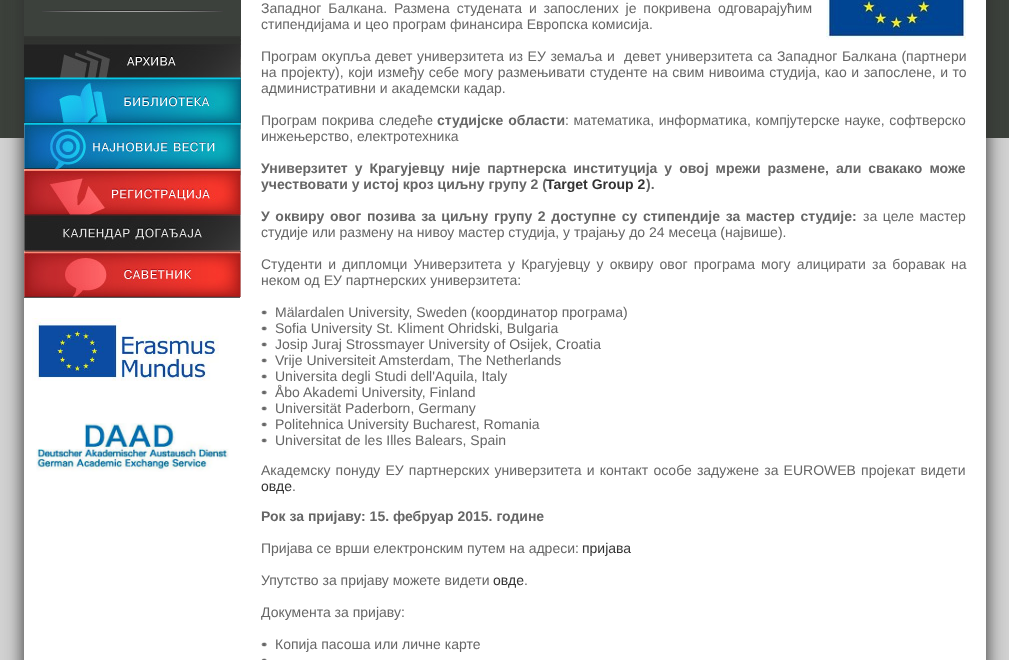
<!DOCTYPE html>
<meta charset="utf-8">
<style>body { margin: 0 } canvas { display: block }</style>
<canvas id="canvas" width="1009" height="660"></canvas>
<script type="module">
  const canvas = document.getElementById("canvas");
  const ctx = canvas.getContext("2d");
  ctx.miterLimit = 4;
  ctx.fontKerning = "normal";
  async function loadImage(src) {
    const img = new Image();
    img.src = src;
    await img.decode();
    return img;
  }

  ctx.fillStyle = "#d1d1d1";
  ctx.fillRect(0, 0, 1009, 660);
  ctx.fillStyle = "#3c413b";
  ctx.fillRect(0, 0, 1009, 138);
  ctx.fillStyle = "rgba(50, 50, 50, 0.76)";
  ctx.filter = "blur(10px)";
  ctx.beginPath();
  ctx.rect(26, -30, 956, 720);
  ctx.fill();
  ctx.filter = "none";
  ctx.filter = "blur(10px)";
  ctx.beginPath();
  ctx.rect(28, -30, 956, 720);
  ctx.fill();
  ctx.filter = "none";
  ctx.fillStyle = "#ffffff";
  ctx.fillRect(24, 0, 962, 660);
  ctx.fillStyle = "#3c413c";
  ctx.fillRect(24, 0, 217, 36);
  ctx.drawImage(await loadImage("img1.png"), 42, 10, 181, 2);
  ctx.drawImage(await loadImage("img2.png"), 24, 36, 217, 41);
  ctx.drawImage(await loadImage("img3.png"), 24, 77, 217, 46);
  ctx.fillStyle = "#595959";
  ctx.fillRect(24, 297, 216, 1);
  ctx.drawImage(await loadImage("img4.png"), 24, 123, 217, 46);
  ctx.drawImage(await loadImage("img5.png"), 24, 169, 217, 46);
  ctx.drawImage(await loadImage("img6.png"), 24, 215, 217, 36);
  ctx.drawImage(await loadImage("img7.png"), 24, 251, 217, 46);
  ctx.drawImage(await loadImage("img8.png"), 32, 318, 187, 63);
  ctx.drawImage(await loadImage("img9.png"), 36, 423, 193, 49);
  ctx.wordSpacing = "3px";
  ctx.font = "14px Liberation Sans";
  ctx.fillStyle = "#666666";
  ctx.fillText("Западног Балкана. Размена студената и запослених је покривена одговарајућим", 261, 13);
  ctx.wordSpacing = "0px";
  ctx.fillText("стипендијама и цео програм финансира Европска комисија.", 261, 29);
  ctx.drawImage(await loadImage("img10.png"), 826, 0, 140, 40);
  ctx.wordSpacing = "0.75px";
  ctx.fillText("Програм окупља девет универзитета из ЕУ земаља и  девет универзитета са Западног Балкана (партнери", 261, 61);
  ctx.wordSpacing = "0.7px";
  ctx.fillText("на пројекту), који између себе могу размењивати студенте на свим нивоима студија, као и запослене, и то", 261, 77);
  ctx.wordSpacing = "0px";
  ctx.fillText("административни и академски кадар.", 261, 93);
  ctx.wordSpacing = "1px";
  ctx.fillText("Програм покрива следеће", 261, 125);
  ctx.font = "bold 14px Liberation Sans";
  ctx.fillText("студијске области", 437, 125);
  ctx.wordSpacing = "0.75px";
  ctx.font = "14px Liberation Sans";
  ctx.fillText(": математика, информатика, компјутерске науке, софтверско", 565, 125);
  ctx.wordSpacing = "0px";
  ctx.fillText("инжењерство, електротехника", 261, 141);
  ctx.wordSpacing = "3.1px";
  ctx.font = "bold 14px Liberation Sans";
  ctx.fillText("Универзитет у Крагујевцу није партнерска институција у овој мрежи размене, али свакако може", 261, 173);
  ctx.wordSpacing = "0px";
  ctx.fillText("учествовати у истој кроз циљну групу 2 (", 261, 189);
  ctx.fillStyle = "#333333";
  ctx.fillText("Target Group 2", 546, 189);
  ctx.fillStyle = "#666666";
  ctx.fillText(").", 646, 189);
  ctx.wordSpacing = "1.75px";
  ctx.fillText("У оквиру овог позива за циљну групу 2 доступне су стипендије за мастер студије:", 261, 221);
  ctx.font = "14px Liberation Sans";
  ctx.fillText("за целе мастер", 863, 221);
  ctx.wordSpacing = "0px";
  ctx.fillText("студије или размену на нивоу мастер студија, у трајању до 24 месеца (највише).", 261, 237);
  ctx.wordSpacing = "2.25px";
  ctx.fillText("Студенти и дипломци Универзитета у Крагујевцу у оквиру овог програма могу алицирати за боравак на", 261, 269);
  ctx.wordSpacing = "0px";
  ctx.fillText("неком од ЕУ партнерских универзитета:", 261, 285);
  ctx.drawImage(await loadImage("img11.png"), 261, 310, 6, 5);
  ctx.fillText("Mälardalen University, Sweden (координатор програма)", 275, 317);
  ctx.drawImage(await loadImage("img11.png"), 261, 326, 6, 5);
  ctx.fillText("Sofia University St. Kliment Ohridski, Bulgaria", 275, 333);
  ctx.drawImage(await loadImage("img11.png"), 261, 342, 6, 5);
  ctx.fillText("Josip Juraj Strossmayer University of Osijek, Croatia", 275, 349);
  ctx.drawImage(await loadImage("img11.png"), 261, 358, 6, 5);
  ctx.fillText("Vrije Universiteit Amsterdam, The Netherlands", 275, 365);
  ctx.drawImage(await loadImage("img11.png"), 261, 374, 6, 5);
  ctx.fillText("Universita degli Studi dell'Aquila, Italy", 275, 381);
  ctx.drawImage(await loadImage("img11.png"), 261, 390, 6, 5);
  ctx.fillText("Åbo Akademi University, Finland", 275, 397);
  ctx.drawImage(await loadImage("img11.png"), 261, 406, 6, 5);
  ctx.fillText("Universität Paderborn, Germany", 275, 413);
  ctx.drawImage(await loadImage("img11.png"), 261, 422, 6, 5);
  ctx.fillText("Politehnica University Bucharest, Romania", 275, 429);
  ctx.drawImage(await loadImage("img11.png"), 261, 438, 6, 5);
  ctx.fillText("Universitat de les Illes Balears, Spain", 275, 445);
  ctx.wordSpacing = "1.25px";
  ctx.fillText("Академску понуду ЕУ партнерских универзитета и контакт особе задужене за EUROWEB пројекат видети", 261, 475);
  ctx.wordSpacing = "0px";
  ctx.fillStyle = "#333333";
  ctx.fillText("овде", 261, 491);
  ctx.fillStyle = "#666666";
  ctx.fillText(".", 292, 491);
  ctx.font = "bold 14px Liberation Sans";
  ctx.fillText("Рок за пријаву: 15. фебруар 2015. године", 261, 521);
  ctx.font = "14px Liberation Sans";
  ctx.fillText("Пријава се врши електронским путем на адреси:", 261, 553);
  ctx.fillStyle = "#333333";
  ctx.fillText("пријава", 582, 553);
  ctx.fillStyle = "#666666";
  ctx.fillText("Упутство за пријаву можете видети", 261, 585);
  ctx.fillStyle = "#333333";
  ctx.fillText("овде", 493, 585);
  ctx.fillStyle = "#666666";
  ctx.fillText(".", 524, 585);
  ctx.fillText("Документа за пријаву:", 261, 617);
  ctx.drawImage(await loadImage("img11.png"), 261, 642, 6, 5);
  ctx.fillText("Копија пасоша или личне карте", 275, 649);
  ctx.drawImage(await loadImage("img12.png"), 261, 658, 6, 2);
</script>
